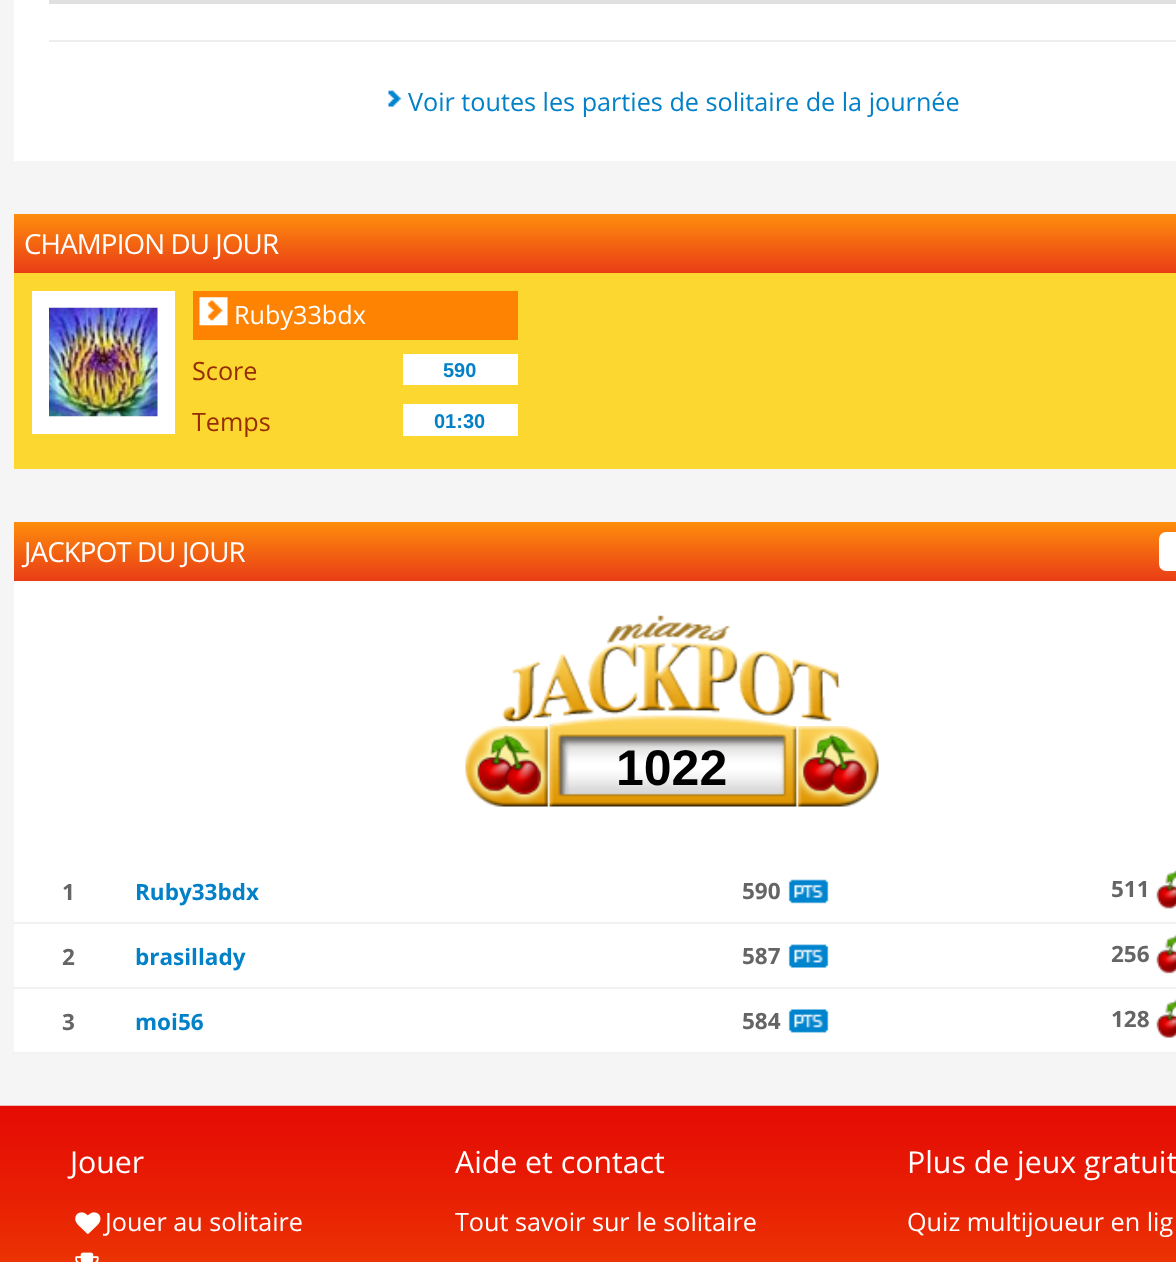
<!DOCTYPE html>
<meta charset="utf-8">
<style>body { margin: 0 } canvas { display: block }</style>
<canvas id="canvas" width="1176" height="1262"></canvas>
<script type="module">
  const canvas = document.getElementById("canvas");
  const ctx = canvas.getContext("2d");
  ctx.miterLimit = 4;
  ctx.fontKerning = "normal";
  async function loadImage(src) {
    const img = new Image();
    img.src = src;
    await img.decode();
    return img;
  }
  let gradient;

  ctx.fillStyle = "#f5f5f5";
  ctx.fillRect(0, 0, 1176, 1262);
  ctx.fillStyle = "#ffffff";
  ctx.fillRect(14, 0, 1162, 161);
  ctx.fillStyle = "#e0e0e0";
  ctx.fillRect(49, 0, 1127, 4);
  ctx.fillStyle = "#eeeeee";
  ctx.fillRect(49, 40, 1127, 2);
  ctx.drawImage(await loadImage("img1.png"), 388, 90, 14, 17);
  ctx.font = "25.2px Open Sans";
  ctx.fillStyle = "#0280c8";
  ctx.fillText("Voir toutes les parties de solitaire de la journée", 408, 111);
  gradient = ctx.createLinearGradient(672, 213, 672, 273);
  gradient.addColorStop(0, "#fe8f0c");
  gradient.addColorStop(1, "#e93c16");
  ctx.fillStyle = gradient;
  ctx.fillRect(14, 214, 1162, 59);
  ctx.letterSpacing = "-0.9px";
  ctx.font = "27.75px Open Sans";
  ctx.fillStyle = "#ffffff";
  ctx.fillText("CHAMPION DU JOUR", 24, 254);
  ctx.fillStyle = "#fbd72f";
  ctx.fillRect(14, 273, 1162, 196);
  ctx.fillStyle = "#ffffff";
  ctx.fillRect(32, 291, 143, 143);
  ctx.drawImage(await loadImage("img2.png"), 49, 307, 109, 110);
  ctx.fillStyle = "#ff8302";
  ctx.fillRect(193, 291, 325, 49);
  ctx.drawImage(await loadImage("img3.png"), 199, 297, 29, 29);
  ctx.letterSpacing = "0px";
  ctx.font = "25.2px Open Sans";
  ctx.fillStyle = "#ffffff";
  ctx.fillText("Ruby33bdx", 234, 324);
  ctx.fillStyle = "#962d04";
  ctx.fillText("Score", 192, 380);
  ctx.fillStyle = "#ffffff";
  ctx.fillRect(403, 354, 115, 31);
  ctx.font = "bold 20px Liberation Sans";
  ctx.fillStyle = "#0280c8";
  ctx.fillText("590", 443, 377);
  ctx.font = "25.2px Open Sans";
  ctx.fillStyle = "#962d04";
  ctx.fillText("Temps", 192, 431);
  ctx.fillStyle = "#ffffff";
  ctx.fillRect(403, 404, 115, 32);
  ctx.font = "bold 20px Liberation Sans";
  ctx.fillStyle = "#0280c8";
  ctx.fillText("01:30", 434, 428);
  gradient = ctx.createLinearGradient(672, 521, 672, 581);
  gradient.addColorStop(0, "#fe8f0c");
  gradient.addColorStop(1, "#e93c16");
  ctx.fillStyle = gradient;
  ctx.fillRect(14, 522, 1162, 59);
  ctx.letterSpacing = "-0.9px";
  ctx.font = "27.75px Open Sans";
  ctx.fillStyle = "#ffffff";
  ctx.fillText("JACKPOT DU JOUR", 24, 562);
  ctx.beginPath();
  ctx.roundRect(1159, 532, 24, 39, 7);
  ctx.fill();
  ctx.fillRect(14, 581, 1162, 278);
  ctx.drawImage(await loadImage("img4.png"), 502, 615, 339, 111);
  ctx.drawImage(await loadImage("img5.png"), 465, 726, 414, 81);
  ctx.letterSpacing = "0px";
  ctx.font = "bold 50px Liberation Sans";
  ctx.fillStyle = "#000000";
  ctx.fillText("1022", 616, 785);
  ctx.fillStyle = "#f2f2f2";
  ctx.fillRect(12, 922, 1164, 2);
  ctx.fillStyle = "#ffffff";
  ctx.fillRect(14, 859, 1162, 63);
  ctx.font = "bold 22.5px Open Sans";
  ctx.fillStyle = "#656565";
  ctx.fillText("1", 62, 900);
  ctx.fillStyle = "#0280c8";
  ctx.fillText("Ruby33bdx", 135, 900);
  ctx.fillStyle = "#656565";
  ctx.fillText("590", 742, 899);
  ctx.drawImage(await loadImage("img6.png"), 788, 879, 41, 25);
  ctx.fillText("511", 1111, 897);
  ctx.drawImage(await loadImage("img7.png"), 1156, 869, 20, 40);
  ctx.fillStyle = "#f2f2f2";
  ctx.fillRect(12, 987, 1164, 2);
  ctx.fillStyle = "#ffffff";
  ctx.fillRect(14, 924, 1162, 63);
  ctx.fillStyle = "#656565";
  ctx.fillText("2", 62, 965);
  ctx.fillStyle = "#0280c8";
  ctx.fillText("brasillady", 135, 965);
  ctx.fillStyle = "#656565";
  ctx.fillText("587", 742, 964);
  ctx.drawImage(await loadImage("img8.png"), 788, 944, 41, 24);
  ctx.fillText("256", 1111, 962);
  ctx.drawImage(await loadImage("img9.png"), 1156, 934, 20, 40);
  ctx.fillStyle = "#f2f2f2";
  ctx.fillRect(12, 1052, 1164, 2);
  ctx.fillStyle = "#ffffff";
  ctx.fillRect(14, 989, 1162, 63);
  ctx.fillStyle = "#656565";
  ctx.fillText("3", 62, 1030);
  ctx.fillStyle = "#0280c8";
  ctx.fillText("moi56", 135, 1030);
  ctx.fillStyle = "#656565";
  ctx.fillText("584", 742, 1029);
  ctx.drawImage(await loadImage("img10.png"), 788, 1009, 41, 24);
  ctx.fillText("128", 1111, 1027);
  ctx.drawImage(await loadImage("img11.png"), 1156, 999, 20, 39);
  ctx.drawImage(await loadImage("img12.png"), 0, 1105, 1176, 157);
  ctx.font = "30.25px Open Sans";
  ctx.fillStyle = "#ffffff";
  ctx.fillText("Jouer", 70, 1173);
  ctx.drawImage(await loadImage("img13.png"), 75, 1212, 26, 22);
  ctx.font = "25.2px Open Sans";
  ctx.fillText("Jouer au solitaire", 105, 1231);
  ctx.drawImage(await loadImage("img14.png"), 75, 1252, 24, 10);
  ctx.font = "30.25px Open Sans";
  ctx.fillText("Aide et contact", 455, 1173);
  ctx.font = "25.2px Open Sans";
  ctx.fillText("Tout savoir sur le solitaire", 455, 1231);
  ctx.font = "30.25px Open Sans";
  ctx.fillText("Plus de jeux gratuit", 907, 1173);
  ctx.font = "25.2px Open Sans";
  ctx.fillText("Quiz multijoueur en lig", 907, 1231);
</script>
